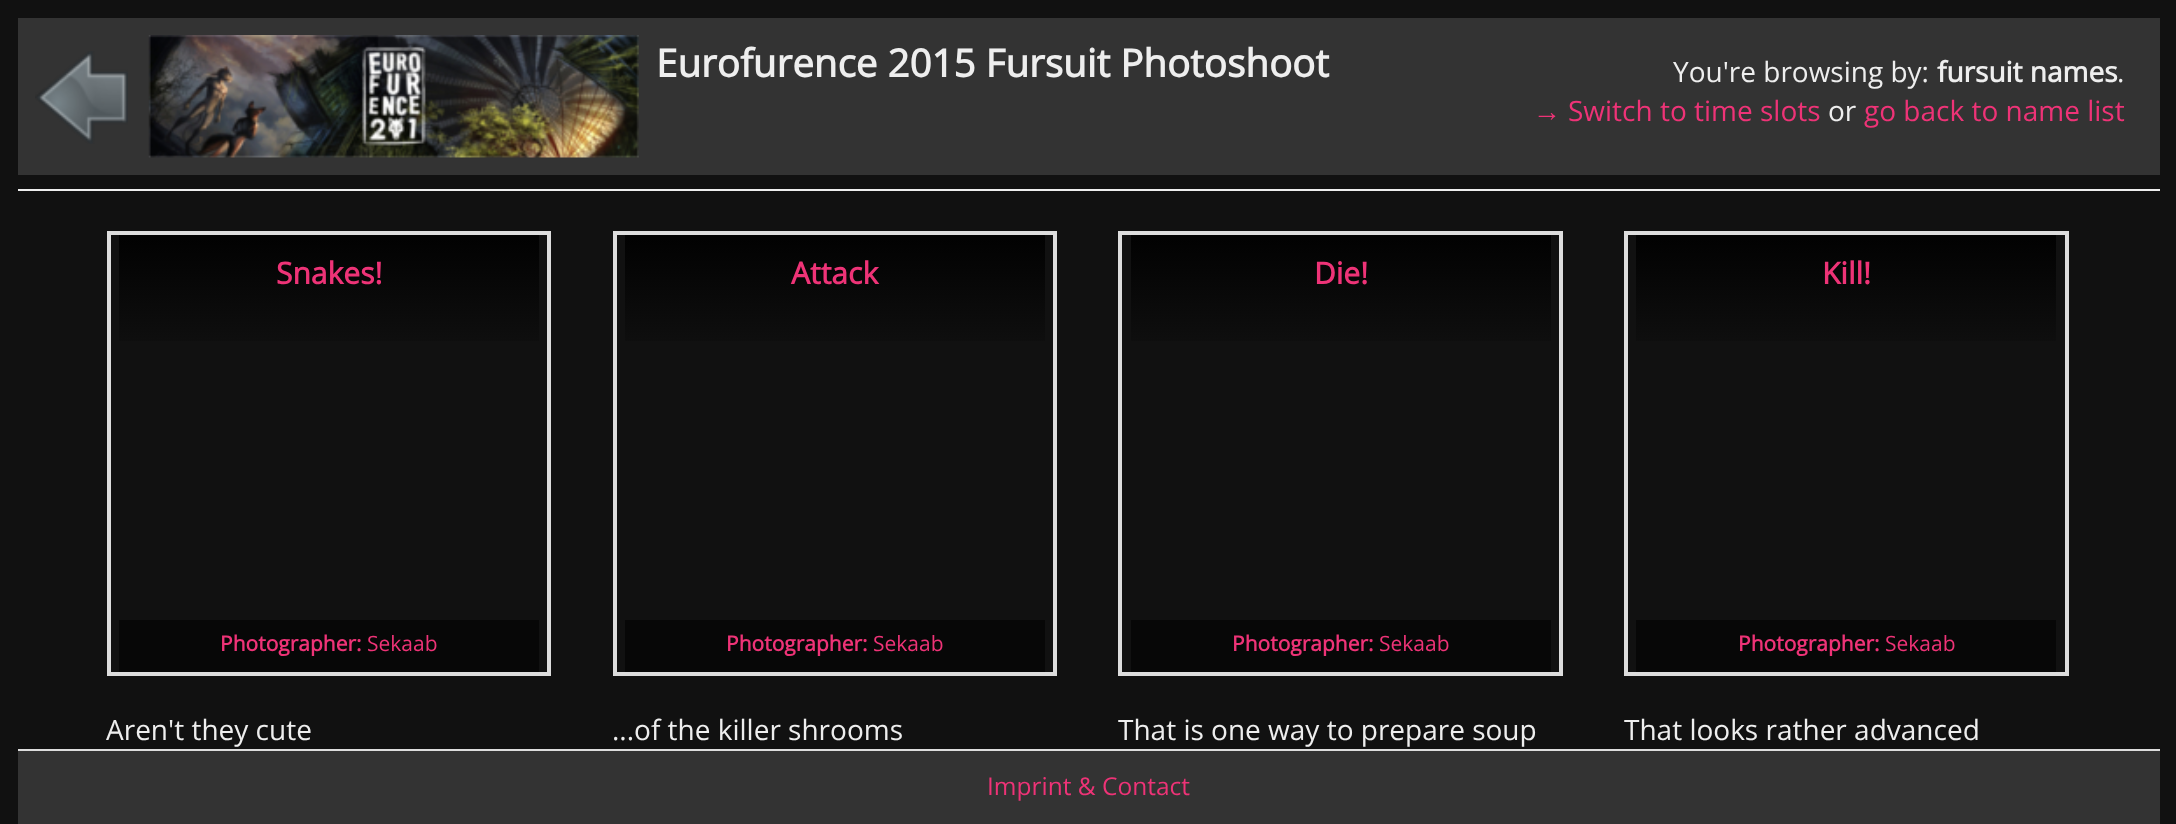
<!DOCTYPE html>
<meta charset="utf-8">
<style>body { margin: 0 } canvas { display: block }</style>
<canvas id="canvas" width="2176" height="824"></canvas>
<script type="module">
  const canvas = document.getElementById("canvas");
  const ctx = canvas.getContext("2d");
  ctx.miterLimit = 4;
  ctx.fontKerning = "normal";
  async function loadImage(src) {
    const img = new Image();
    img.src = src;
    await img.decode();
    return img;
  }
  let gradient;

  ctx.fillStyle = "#111111";
  ctx.fillRect(0, 0, 2176, 824);
  ctx.fillStyle = "#333333";
  ctx.fillRect(18, 18, 2142, 157);
  ctx.drawImage(await loadImage("img1.png"), 35, 51, 93, 93);
  ctx.drawImage(await loadImage("img2.png"), 148, 35, 491, 123);
  ctx.font = "bold 38.5px Open Sans";
  ctx.fillStyle = "#eeeeee";
  ctx.fillText("Eurofurence 2015 Fursuit Photoshoot", 656, 77);
  ctx.font = "28px Open Sans";
  ctx.fillText("You're browsing by:", 1673, 82);
  ctx.font = "bold 28px Open Sans";
  ctx.fillText("fursuit names", 1937, 82);
  ctx.font = "28px Open Sans";
  ctx.fillText(".", 2117, 82);
  ctx.font = "28px Liberation Sans";
  ctx.fillStyle = "#ee3377";
  ctx.fillText("→", 1533, 121);
  ctx.font = "28px Open Sans";
  ctx.fillText("Switch to time slots", 1568, 121);
  ctx.fillStyle = "#eeeeee";
  ctx.fillText("or", 1828, 121);
  ctx.fillStyle = "#ee3377";
  ctx.fillText("go back to name list", 1864, 121);
  ctx.fillStyle = "#eeeeee";
  ctx.fillRect(18, 189, 2142, 2);
  ctx.strokeStyle = "#dddddd";
  ctx.lineWidth = 4;
  ctx.strokeRect(109, 233, 440, 441);
  gradient = ctx.createLinearGradient(329, 222, 329, 362);
  gradient.addColorStop(0, "#000000");
  gradient.addColorStop(1, "#111111");
  ctx.fillStyle = gradient;
  ctx.fillRect(119, 235, 420, 106);
  ctx.font = "bold 30px Open Sans";
  ctx.fillStyle = "#ee3377";
  ctx.fillText("Snakes!", 276, 284);
  ctx.fillStyle = "#070707";
  ctx.fillRect(119, 620, 420, 52);
  ctx.font = "bold 21px Open Sans";
  ctx.fillStyle = "#ee3377";
  ctx.fillText("Photographer:", 220, 651);
  ctx.font = "21px Open Sans";
  ctx.fillText("Sekaab", 367, 651);
  ctx.font = "28px Open Sans";
  ctx.fillStyle = "#eeeeee";
  ctx.fillText("Aren't they cute", 106, 740);
  ctx.strokeRect(615, 233, 440, 441);
  gradient = ctx.createLinearGradient(835, 222, 835, 362);
  gradient.addColorStop(0, "#000000");
  gradient.addColorStop(1, "#111111");
  ctx.fillStyle = gradient;
  ctx.fillRect(625, 235, 420, 106);
  ctx.font = "bold 30px Open Sans";
  ctx.fillStyle = "#ee3377";
  ctx.fillText("Attack", 791, 284);
  ctx.fillStyle = "#070707";
  ctx.fillRect(625, 620, 420, 52);
  ctx.font = "bold 21px Open Sans";
  ctx.fillStyle = "#ee3377";
  ctx.fillText("Photographer:", 726, 651);
  ctx.font = "21px Open Sans";
  ctx.fillText("Sekaab", 873, 651);
  ctx.font = "28px Open Sans";
  ctx.fillStyle = "#eeeeee";
  ctx.fillText("...of the killer shrooms", 612, 740);
  ctx.strokeRect(1120, 233, 441, 441);
  gradient = ctx.createLinearGradient(1341, 222, 1341, 362);
  gradient.addColorStop(0, "#000000");
  gradient.addColorStop(1, "#111111");
  ctx.fillStyle = gradient;
  ctx.fillRect(1131, 235, 420, 106);
  ctx.font = "bold 30px Open Sans";
  ctx.fillStyle = "#ee3377";
  ctx.fillText("Die!", 1314, 284);
  ctx.fillStyle = "#070707";
  ctx.fillRect(1131, 620, 420, 52);
  ctx.font = "bold 21px Open Sans";
  ctx.fillStyle = "#ee3377";
  ctx.fillText("Photographer:", 1232, 651);
  ctx.font = "21px Open Sans";
  ctx.fillText("Sekaab", 1379, 651);
  ctx.font = "28px Open Sans";
  ctx.fillStyle = "#eeeeee";
  ctx.fillText("That is one way to prepare soup", 1118, 740);
  ctx.strokeRect(1626, 233, 441, 441);
  gradient = ctx.createLinearGradient(1846, 222, 1846, 362);
  gradient.addColorStop(0, "#000000");
  gradient.addColorStop(1, "#111111");
  ctx.fillStyle = gradient;
  ctx.fillRect(1636, 235, 420, 106);
  ctx.font = "bold 30px Open Sans";
  ctx.fillStyle = "#ee3377";
  ctx.fillText("Kill!", 1822, 284);
  ctx.fillStyle = "#070707";
  ctx.fillRect(1636, 620, 420, 52);
  ctx.font = "bold 21px Open Sans";
  ctx.fillStyle = "#ee3377";
  ctx.fillText("Photographer:", 1738, 651);
  ctx.font = "21px Open Sans";
  ctx.fillText("Sekaab", 1885, 651);
  ctx.font = "28px Open Sans";
  ctx.fillStyle = "#eeeeee";
  ctx.fillText("That looks rather advanced", 1624, 740);
  ctx.fillStyle = "#333333";
  ctx.fillRect(18, 751, 2142, 73);
  ctx.fillStyle = "#dddddd";
  ctx.fillRect(18, 749, 2142, 2);
  ctx.font = "24.5px Open Sans";
  ctx.fillStyle = "#ee3377";
  ctx.fillText("Imprint & Contact", 987, 795);
</script>
